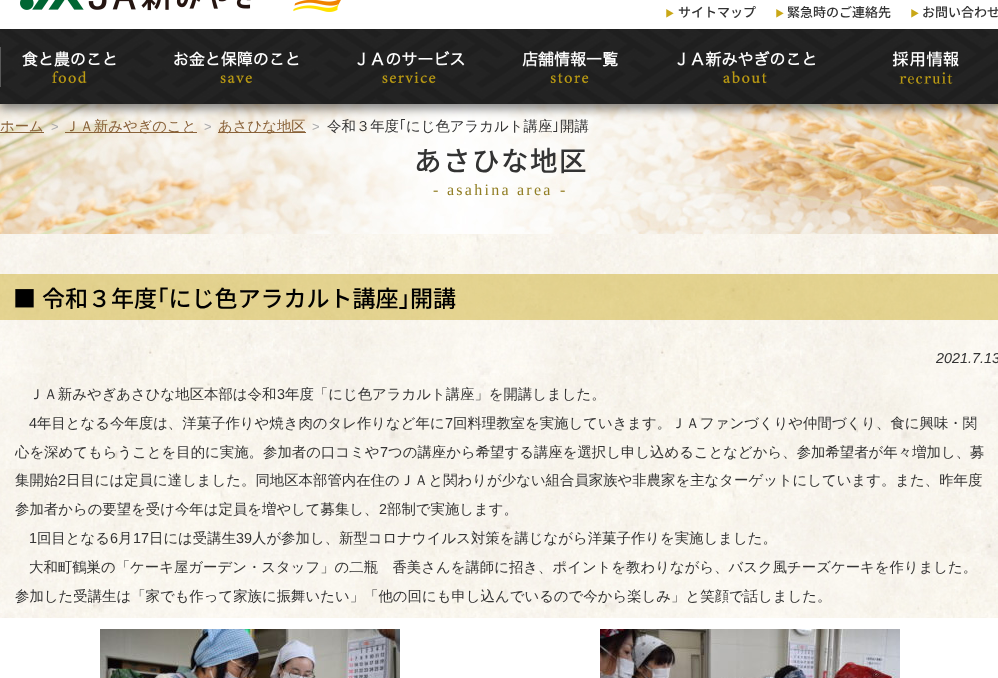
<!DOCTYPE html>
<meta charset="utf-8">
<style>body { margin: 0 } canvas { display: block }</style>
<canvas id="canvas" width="998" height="678"></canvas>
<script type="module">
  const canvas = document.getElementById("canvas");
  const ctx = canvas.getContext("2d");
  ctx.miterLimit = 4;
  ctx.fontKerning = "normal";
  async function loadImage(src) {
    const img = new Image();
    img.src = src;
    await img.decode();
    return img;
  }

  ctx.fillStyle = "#ffffff";
  ctx.fillRect(0, 0, 998, 678);
  ctx.drawImage(await loadImage("img1.png"), 0, 234, 998, 384);
  ctx.drawImage(await loadImage("img11.png"), 0, 104, 998, 130);
  ctx.fillStyle = "rgba(0, 0, 0, 0.45)";
  ctx.filter = "blur(5px)";
  ctx.beginPath();
  ctx.rect(0, 34, 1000, 75);
  ctx.fill();
  ctx.filter = "none";
  ctx.fillStyle = "#ffffff";
  ctx.fillRect(0, 24, 998, 5);
  ctx.drawImage(await loadImage("img2.png"), 20, 0, 321, 12);
  ctx.drawImage(await loadImage("img3.png"), 666, 9, 8, 9);
  ctx.font = "500 13px Noto Sans JP";
  ctx.fillStyle = "#333333";
  ctx.fillText("サイトマップ", 678, 17);
  ctx.drawImage(await loadImage("img3.png"), 776, 9, 8, 9);
  ctx.fillText("緊急時のご連絡先", 787, 17);
  ctx.drawImage(await loadImage("img3.png"), 911, 9, 8, 9);
  ctx.fillText("お問い合わせ", 922, 17);
  ctx.drawImage(await loadImage("img4.png"), 0, 29, 998, 75);
  ctx.fillStyle = "#595959";
  ctx.fillRect(0, 47, 1, 40);
  ctx.drawImage(await loadImage("img5.png"), 22, 51, 94, 33);
  ctx.drawImage(await loadImage("img6.png"), 174, 51, 125, 33);
  ctx.drawImage(await loadImage("img7.png"), 357, 51, 108, 33);
  ctx.drawImage(await loadImage("img8.png"), 522, 51, 96, 33);
  ctx.drawImage(await loadImage("img9.png"), 677, 51, 138, 33);
  ctx.drawImage(await loadImage("img10.png"), 892, 51, 67, 33);
  ctx.fillStyle = "#896239";
  ctx.fillRect(0, 132, 44, 1);
  ctx.font = "500 14.4px WenQuanYi Zen Hei";
  ctx.fillText("ホーム", 0, 131);
  ctx.font = "13px Liberation Sans";
  ctx.fillStyle = "#aaaaaa";
  ctx.fillText(">", 51, 131);
  ctx.fillStyle = "#896239";
  ctx.fillRect(65, 132, 132, 1);
  ctx.font = "500 14.4px WenQuanYi Zen Hei";
  ctx.fillText("ＪＡ新みやぎのこと", 65, 131);
  ctx.font = "13px Liberation Sans";
  ctx.fillStyle = "#aaaaaa";
  ctx.fillText(">", 204, 131);
  ctx.fillStyle = "#896239";
  ctx.fillRect(218, 132, 88, 1);
  ctx.font = "500 14.4px WenQuanYi Zen Hei";
  ctx.fillText("あさひな地区", 218, 131);
  ctx.font = "13px Liberation Sans";
  ctx.fillStyle = "#aaaaaa";
  ctx.fillText(">", 312, 131);
  ctx.font = "500 14.4px WenQuanYi Zen Hei";
  ctx.fillStyle = "#333333";
  ctx.fillText("令和３年度", 327, 131);
  ctx.font = "14.4px IPAPGothic";
  ctx.fillText("｢", 399, 131);
  ctx.font = "500 14.4px WenQuanYi Zen Hei";
  ctx.fillText("にじ色アラカルト講座", 406, 131);
  ctx.font = "14.4px IPAPGothic";
  ctx.fillText("｣", 552, 131);
  ctx.font = "500 14.4px WenQuanYi Zen Hei";
  ctx.fillText("開講", 560, 131);
  ctx.letterSpacing = "1.5px";
  ctx.font = "500 27.5px Noto Sans JP";
  ctx.fillText("あさひな地区", 414, 171);
  ctx.letterSpacing = "2.25px";
  ctx.font = "16px Liberation Serif";
  ctx.fillStyle = "#917e24";
  ctx.fillText("-", 433, 195);
  ctx.fillText("asahina area", 447, 195);
  ctx.fillText("-", 560, 195);
  ctx.fillStyle = "rgba(201, 167, 23, 0.44)";
  ctx.fillRect(0, 274, 998, 46);
  ctx.letterSpacing = "0px";
  ctx.font = "500 23px Noto Sans JP";
  ctx.fillStyle = "#000000";
  ctx.fillText("■", 13, 307);
  ctx.fillText("令和３年度｢にじ色アラカルト講座｣開講", 42, 307);
  ctx.font = "italic 14.4px Liberation Sans";
  ctx.fillStyle = "#333333";
  ctx.fillText("2021.7.13", 936, 363);
  ctx.font = "500 14.4px WenQuanYi Zen Hei";
  ctx.fillText("ＪＡ新みやぎあさひな地区本部は令和", 29, 399);
  ctx.font = "14.4px Liberation Sans";
  ctx.fillText("3", 277, 399);
  ctx.font = "500 14.4px WenQuanYi Zen Hei";
  ctx.fillText("年度「にじ色アラカルト講座」を開講しました。", 285, 399);
  ctx.font = "14.4px Liberation Sans";
  ctx.fillText("4", 29, 428);
  ctx.font = "500 14.4px WenQuanYi Zen Hei";
  ctx.fillText("年目となる今年度は、洋菓子作りや焼き肉のタレ作りなど年に", 37, 428);
  ctx.font = "14.4px Liberation Sans";
  ctx.fillText("7", 445, 428);
  ctx.font = "500 14.4px WenQuanYi Zen Hei";
  ctx.fillText("回料理教室を実施していきます。ＪＡファンづくりや仲間づくり、食に興味・関", 453, 428);
  ctx.fillText("心を深めてもらうことを目的に実施。参加者の口コミや", 15, 457);
  ctx.font = "14.4px Liberation Sans";
  ctx.fillText("7", 380, 457);
  ctx.font = "500 14.4px WenQuanYi Zen Hei";
  ctx.fillText("つの講座から希望する講座を選択し申し込めることなどから、参加希望者が年々増加し、募", 388, 457);
  ctx.fillText("集開始", 15, 485);
  ctx.font = "14.4px Liberation Sans";
  ctx.fillText("2", 58, 485);
  ctx.font = "500 14.4px WenQuanYi Zen Hei";
  ctx.fillText("日目には定員に達しました。同地区本部管内在住のＪＡと関わりが少ない組合員家族や非農家を主なターゲットにしています。また、昨年度", 66, 485);
  ctx.fillText("参加者からの要望を受け今年は定員を増やして募集し、", 15, 514);
  ctx.font = "14.4px Liberation Sans";
  ctx.fillText("2", 379, 514);
  ctx.font = "500 14.4px WenQuanYi Zen Hei";
  ctx.fillText("部制で実施します。", 387, 514);
  ctx.font = "14.4px Liberation Sans";
  ctx.fillText("1", 29, 543);
  ctx.font = "500 14.4px WenQuanYi Zen Hei";
  ctx.fillText("回目となる", 37, 543);
  ctx.font = "14.4px Liberation Sans";
  ctx.fillText("6", 110, 543);
  ctx.font = "500 14.4px WenQuanYi Zen Hei";
  ctx.fillText("月", 118, 543);
  ctx.font = "14.4px Liberation Sans";
  ctx.fillText("17", 133, 543);
  ctx.font = "500 14.4px WenQuanYi Zen Hei";
  ctx.fillText("日には受講生", 149, 543);
  ctx.font = "14.4px Liberation Sans";
  ctx.fillText("39", 236, 543);
  ctx.font = "500 14.4px WenQuanYi Zen Hei";
  ctx.fillText("人が参加し、新型コロナウイルス対策を講じながら洋菓子作りを実施しました。", 252, 543);
  ctx.fillText("大和町鶴巣の「ケーキ屋ガーデン・スタッフ」の二瓶　香美さんを講師に招き、ポイントを教わりながら、バスク風チーズケーキを作りました。", 29, 572);
  ctx.fillText("参加した受講生は「家でも作って家族に振舞いたい」「他の回にも申し込んでいるので今から楽しみ」と笑顔で話しました。", 15, 601);
  ctx.drawImage(await loadImage("img12.png"), 100, 629, 300, 49);
  ctx.drawImage(await loadImage("img13.png"), 600, 629, 300, 49);
</script>
